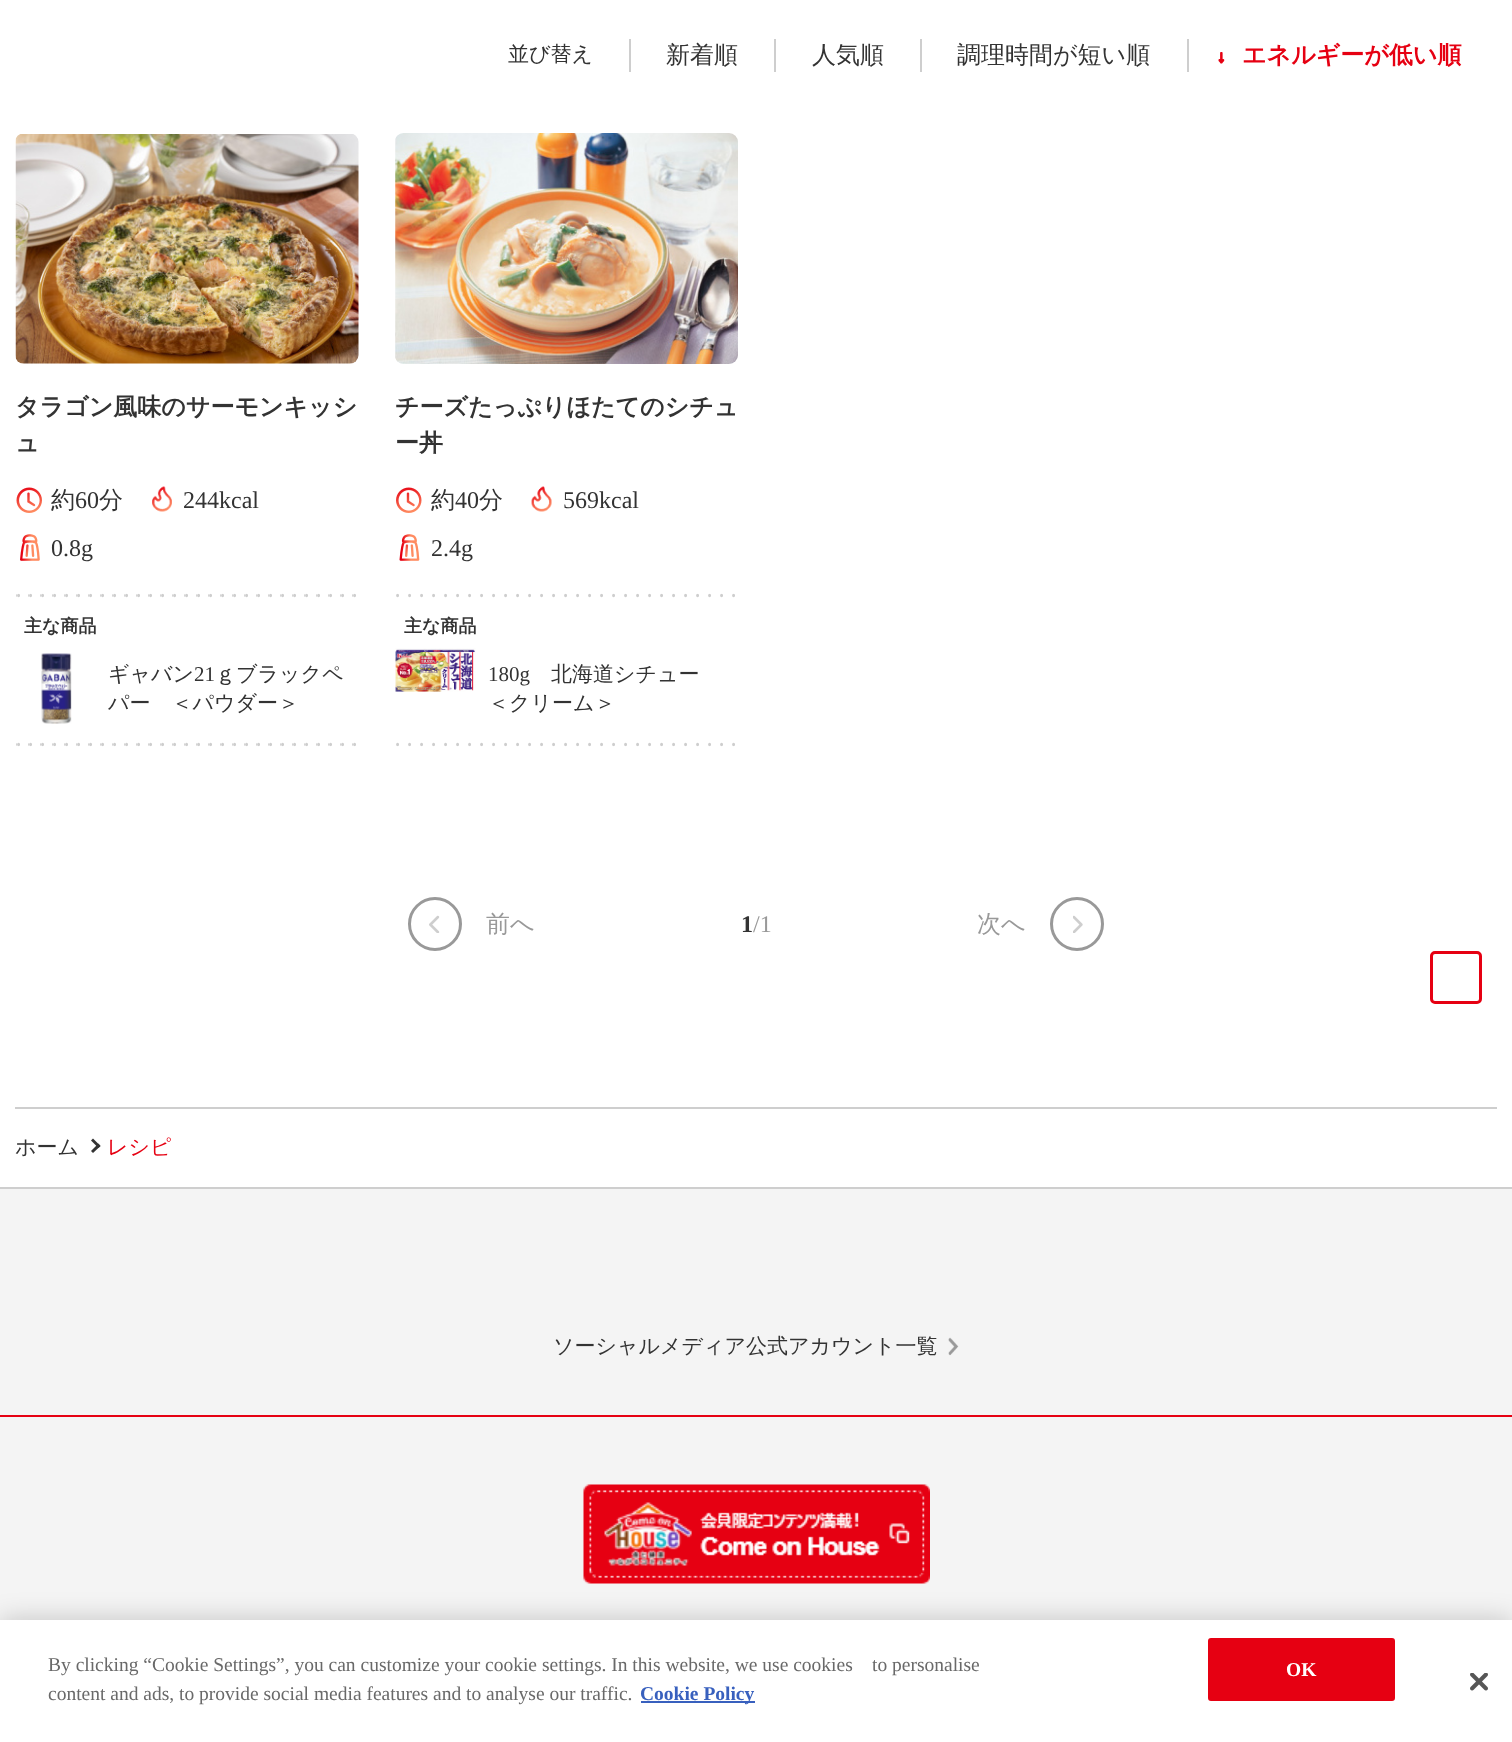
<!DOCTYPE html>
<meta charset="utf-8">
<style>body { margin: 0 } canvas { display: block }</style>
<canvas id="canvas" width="1512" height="1742"></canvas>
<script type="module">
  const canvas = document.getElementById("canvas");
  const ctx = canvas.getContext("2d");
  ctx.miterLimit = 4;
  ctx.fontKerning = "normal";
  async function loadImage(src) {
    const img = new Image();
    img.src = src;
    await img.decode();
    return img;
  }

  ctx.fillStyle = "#ffffff";
  ctx.fillRect(0, 0, 1512, 1742);
  ctx.font = "500 21px WenQuanYi Zen Hei";
  ctx.fillStyle = "#333333";
  ctx.fillText("並び替え", 508, 61);
  ctx.fillStyle = "#cecece";
  ctx.fillRect(629, 39, 2, 33);
  ctx.font = "500 24px WenQuanYi Zen Hei";
  ctx.fillStyle = "#333333";
  ctx.fillText("新着順", 666, 63);
  ctx.fillStyle = "#cecece";
  ctx.fillRect(774, 39, 2, 33);
  ctx.fillStyle = "#333333";
  ctx.fillText("人気順", 812, 63);
  ctx.fillStyle = "#cecece";
  ctx.fillRect(920, 39, 2, 33);
  ctx.fillStyle = "#333333";
  ctx.fillText("調理時間が短い順", 957, 63);
  ctx.fillStyle = "#cecece";
  ctx.fillRect(1187, 39, 2, 33);
  ctx.drawImage(await loadImage("img1.png"), 1218, 52, 7, 12);
  ctx.font = "bold 24px WenQuanYi Zen Hei";
  ctx.fillStyle = "#e60012";
  ctx.fillText("エネルギーが低い順", 1242, 63);
  ctx.drawImage(await loadImage("img2.png"), 15, 134, 344, 230);
  ctx.fillStyle = "#333333";
  ctx.fillText("タラゴン風味のサーモンキッシ", 15, 415);
  ctx.fillText("ュ", 15, 451);
  ctx.drawImage(await loadImage("img3.png"), 16, 487, 26, 26);
  ctx.font = "500 24px WenQuanYi Zen Hei";
  ctx.fillText("約", 51, 508);
  ctx.font = "24px Liberation Serif";
  ctx.fillText("60", 75, 508);
  ctx.font = "500 24px WenQuanYi Zen Hei";
  ctx.fillText("分", 99, 508);
  ctx.drawImage(await loadImage("img4.png"), 152, 486, 20, 26);
  ctx.font = "24px Liberation Serif";
  ctx.fillText("244kcal", 183, 508);
  ctx.drawImage(await loadImage("img5.png"), 20, 534, 20, 27);
  ctx.fillText("0.8g", 51, 556);
  ctx.drawImage(await loadImage("img6.png"), 16, 593, 340, 5);
  ctx.font = "bold 18px WenQuanYi Zen Hei";
  ctx.fillText("主な商品", 24, 632);
  ctx.drawImage(await loadImage("img7.png"), 41, 653, 31, 71);
  ctx.font = "500 21px WenQuanYi Zen Hei";
  ctx.fillText("ギャバン", 108, 681);
  ctx.font = "21px Liberation Serif";
  ctx.fillText("21", 194, 681);
  ctx.font = "500 21px WenQuanYi Zen Hei";
  ctx.fillText("ｇブラックペ", 215, 681);
  ctx.fillText("パー　＜パウダー＞", 108, 710);
  ctx.drawImage(await loadImage("img8.png"), 16, 742, 340, 5);
  ctx.drawImage(await loadImage("img9.png"), 395, 133, 343, 231);
  ctx.font = "bold 24px WenQuanYi Zen Hei";
  ctx.fillText("チーズたっぷりほたてのシチュ", 395, 415);
  ctx.fillText("ー丼", 395, 451);
  ctx.drawImage(await loadImage("img10.png"), 396, 487, 26, 26);
  ctx.font = "500 24px WenQuanYi Zen Hei";
  ctx.fillText("約", 431, 508);
  ctx.font = "24px Liberation Serif";
  ctx.fillText("40", 455, 508);
  ctx.font = "500 24px WenQuanYi Zen Hei";
  ctx.fillText("分", 479, 508);
  ctx.drawImage(await loadImage("img11.png"), 531, 486, 21, 26);
  ctx.font = "24px Liberation Serif";
  ctx.fillText("569kcal", 563, 508);
  ctx.drawImage(await loadImage("img12.png"), 399, 534, 21, 27);
  ctx.fillText("2.4g", 431, 556);
  ctx.drawImage(await loadImage("img13.png"), 396, 593, 339, 5);
  ctx.font = "bold 18px WenQuanYi Zen Hei";
  ctx.fillText("主な商品", 404, 632);
  ctx.drawImage(await loadImage("img14.png"), 395, 648, 81, 44);
  ctx.font = "21px Liberation Serif";
  ctx.fillText("180g", 488, 681);
  ctx.font = "500 21px WenQuanYi Zen Hei";
  ctx.fillText("北海道シチュー", 551, 681);
  ctx.fillText("＜クリーム＞", 488, 710);
  ctx.drawImage(await loadImage("img15.png"), 396, 742, 339, 5);
  ctx.beginPath();
  ctx.arc(435, 924, 25.5, 0, Math.PI * 2);
  ctx.strokeStyle = "#999999";
  ctx.lineWidth = 3;
  ctx.stroke();
  ctx.font = "500 24px WenQuanYi Zen Hei";
  ctx.fillStyle = "#999999";
  ctx.fillText("前へ", 486, 932);
  ctx.drawImage(await loadImage("img16.png"), 429, 915, 11, 18);
  ctx.font = "bold 24px Liberation Serif";
  ctx.fillStyle = "#333333";
  ctx.fillText("1", 741, 932);
  ctx.font = "24px Liberation Serif";
  ctx.fillStyle = "#999999";
  ctx.fillText("/1", 753, 932);
  ctx.font = "500 24px WenQuanYi Zen Hei";
  ctx.fillText("次へ", 977, 932);
  ctx.beginPath();
  ctx.arc(1077, 924, 25.5, 0, Math.PI * 2);
  ctx.stroke();
  ctx.drawImage(await loadImage("img17.png"), 1073, 915, 10, 18);
  ctx.fillStyle = "#cecece";
  ctx.fillRect(15, 1107, 1482, 2);
  ctx.font = "500 21px WenQuanYi Zen Hei";
  ctx.fillStyle = "#333333";
  ctx.fillText("ホーム", 15, 1154);
  ctx.beginPath();
  ctx.moveTo(93, 1138.5);
  ctx.lineTo(100.5, 1146);
  ctx.lineTo(98.5, 1148);
  ctx.lineTo(91, 1140.5);
  ctx.closePath();
  ctx.fill();
  ctx.beginPath();
  ctx.moveTo(98.5, 1143.5);
  ctx.lineTo(100.5, 1146);
  ctx.lineTo(93, 1153);
  ctx.lineTo(91, 1151);
  ctx.closePath();
  ctx.fill();
  ctx.fillStyle = "#e60012";
  ctx.fillText("レシピ", 107, 1154);
  ctx.beginPath();
  ctx.roundRect(1431.5, 952.5, 49, 50, 3.5);
  ctx.strokeStyle = "#e60012";
  ctx.stroke();
  ctx.fillStyle = "#f4f4f4";
  ctx.fillRect(0, 1189, 1512, 226);
  ctx.fillStyle = "#cecece";
  ctx.fillRect(0, 1187, 1512, 2);
  ctx.drawImage(await loadImage("img18.png"), 948, 1337, 11, 19);
  ctx.fillStyle = "#333333";
  ctx.fillText("ソーシャルメディア公式アカウント一覧", 553, 1353);
  ctx.fillStyle = "#f4f4f4";
  ctx.fillRect(0, 1417, 1512, 203);
  ctx.fillStyle = "#e60012";
  ctx.fillRect(0, 1415, 1512, 2);
  ctx.drawImage(await loadImage("img19.png"), 583, 1484, 347, 100);
  ctx.fillStyle = "rgba(0, 0, 0, 0.2)";
  ctx.filter = "blur(13.5px)";
  ctx.beginPath();
  ctx.rect(0, 1620, 1512, 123);
  ctx.fill();
  ctx.filter = "none";
  ctx.fillStyle = "#ffffff";
  ctx.fillRect(0, 1620, 1512, 122);
  ctx.font = "19.5px Liberation Serif";
  ctx.fillStyle = "#696969";
  ctx.fillText("By clicking “Cookie Settings”, you can customize your cookie settings. In this website, we use cookies", 48, 1671);
  ctx.fillText("to personalise", 872, 1671);
  ctx.fillText("content and ads, to provide social media features and to analyse our traffic.", 48, 1700);
  ctx.fillStyle = "#3860be";
  ctx.fillRect(641, 1701, 114, 2);
  ctx.font = "bold 19.5px Liberation Serif";
  ctx.fillText("Cookie Policy", 640, 1700);
  ctx.fillStyle = "#e60012";
  ctx.beginPath();
  ctx.roundRect(1209, 1639, 185, 61, 2);
  ctx.fill();
  ctx.lineWidth = 2;
  ctx.stroke();
  ctx.fillStyle = "#ffffff";
  ctx.fillText("OK", 1286, 1676);
  ctx.drawImage(await loadImage("img20.png"), 1470, 1673, 18, 18);
</script>
